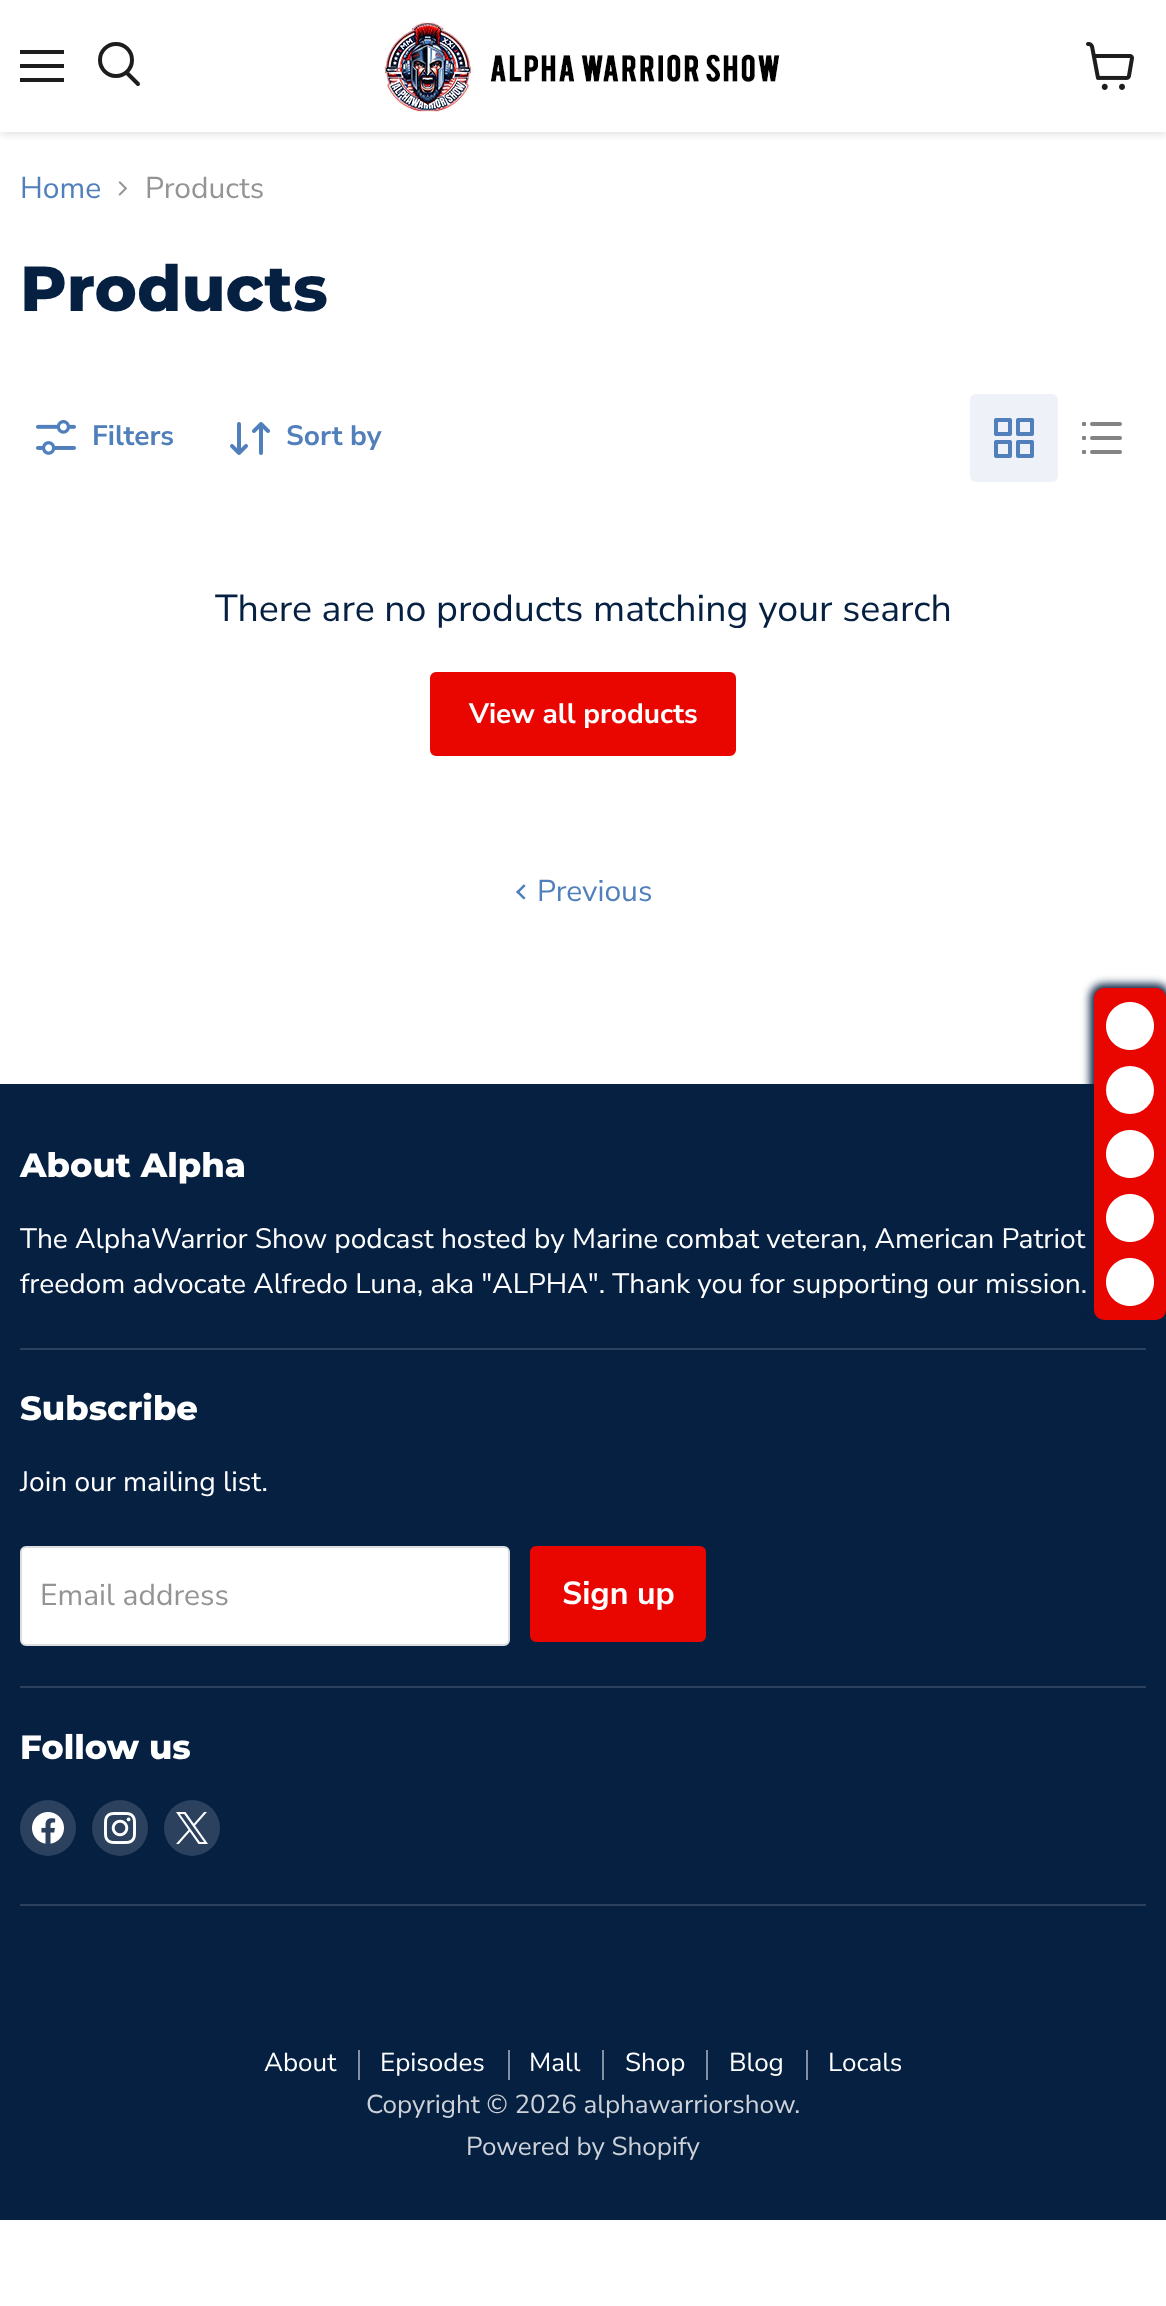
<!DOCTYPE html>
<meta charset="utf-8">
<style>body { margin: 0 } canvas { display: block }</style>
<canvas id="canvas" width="1166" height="2306"></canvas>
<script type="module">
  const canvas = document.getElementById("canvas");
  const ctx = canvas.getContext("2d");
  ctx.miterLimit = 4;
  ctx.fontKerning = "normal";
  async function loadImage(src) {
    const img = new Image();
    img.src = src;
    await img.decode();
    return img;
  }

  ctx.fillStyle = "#ffffff";
  ctx.fillRect(0, 0, 1166, 2306);
  ctx.save();
  ctx.beginPath();
  ctx.rect(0, 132, 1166, 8);
  ctx.clip();
  ctx.fillStyle = "rgba(128, 128, 128, 0.25)";
  ctx.filter = "blur(4px)";
  ctx.beginPath();
  ctx.rect(0, 2, 1166, 132);
  ctx.fill();
  ctx.filter = "none";
  ctx.restore();
  ctx.fillStyle = "#1d1d1d";
  ctx.fillRect(20, 50, 44, 4);
  ctx.fillRect(20, 64, 44, 4);
  ctx.fillRect(20, 78, 44, 4);
  ctx.beginPath();
  ctx.moveTo(138, 84);
  ctx.lineTo(127, 73);
  ctx.strokeStyle = "#1d1d1d";
  ctx.lineWidth = 4;
  ctx.lineCap = "round";
  ctx.stroke();
  ctx.beginPath();
  ctx.arc(116, 60, 16, 0, Math.PI * 2);
  ctx.stroke();
  ctx.drawImage(await loadImage("img1.png"), 384, 22, 396, 90);
  ctx.drawImage(await loadImage("img2.png"), 1086, 42, 48, 48);
  ctx.font = "30px Nunito Sans";
  ctx.fillStyle = "#507fbb";
  ctx.fillText("Home", 20, 198);
  ctx.drawImage(await loadImage("img3.png"), 118, 181, 10, 15);
  ctx.fillStyle = "#949494";
  ctx.fillText("Products", 145, 198);
  ctx.font = "800 63.75px Montserrat";
  ctx.fillStyle = "#062042";
  ctx.fillText("Products", 20, 311);
  ctx.drawImage(await loadImage("img4.png"), 36, 420, 40, 35);
  ctx.font = "bold 28.1px Nunito Sans";
  ctx.fillStyle = "#507fbb";
  ctx.fillText("Filters", 92, 445);
  ctx.drawImage(await loadImage("img5.png"), 230, 422, 40, 33);
  ctx.fillText("Sort by", 286, 445);
  ctx.fillStyle = "#eef2f8";
  ctx.beginPath();
  ctx.roundRect(970, 394, 88, 88, 6);
  ctx.fill();
  ctx.drawImage(await loadImage("img6.png"), 994, 418, 40, 40);
  ctx.drawImage(await loadImage("img7.png"), 1082, 422, 40, 32);
  ctx.font = "37.5px Nunito Sans";
  ctx.fillStyle = "#062042";
  ctx.fillText("There are no products matching your search", 215, 621);
  ctx.fillStyle = "#e90600";
  ctx.beginPath();
  ctx.roundRect(431, 673, 304, 82, 5);
  ctx.fill();
  ctx.strokeStyle = "#e90600";
  ctx.lineWidth = 2;
  ctx.stroke();
  ctx.font = "bold 28px Nunito Sans";
  ctx.fillStyle = "#ffffff";
  ctx.fillText("View all products", 469, 723);
  ctx.drawImage(await loadImage("img8.png"), 516, 884, 10, 16);
  ctx.font = "30px Nunito Sans";
  ctx.fillStyle = "#507fbb";
  ctx.fillText("Previous", 537, 901);
  ctx.fillStyle = "#062042";
  ctx.fillRect(0, 1084, 1166, 1136);
  ctx.fillStyle = "#2b415e";
  ctx.fillRect(20, 1348, 1126, 2);
  ctx.font = "800 33.75px Montserrat";
  ctx.fillStyle = "#ffffff";
  ctx.fillText("About Alpha", 20, 1177);
  ctx.font = "28.1px Nunito Sans";
  ctx.fillText("The AlphaWarrior Show podcast hosted by Marine combat veteran, American Patriot", 20, 1248);
  ctx.fillText("freedom advocate Alfredo Luna, aka \"ALPHA\". Thank you for supporting our mission.", 20, 1293);
  ctx.fillStyle = "#2b415e";
  ctx.fillRect(20, 1686, 1126, 2);
  ctx.font = "800 33.75px Montserrat";
  ctx.fillStyle = "#ffffff";
  ctx.fillText("Subscribe", 20, 1420);
  ctx.font = "28.1px Nunito Sans";
  ctx.fillText("Join our mailing list.", 20, 1491);
  ctx.beginPath();
  ctx.roundRect(21, 1547, 488, 98, 5);
  ctx.fill();
  ctx.strokeStyle = "#dddddd";
  ctx.stroke();
  ctx.font = "30px Nunito Sans";
  ctx.fillStyle = "#949494";
  ctx.fillText("Email address", 40, 1605);
  ctx.fillStyle = "#e90600";
  ctx.beginPath();
  ctx.roundRect(531, 1547, 174, 94, 5);
  ctx.fill();
  ctx.strokeStyle = "#e90600";
  ctx.stroke();
  ctx.font = "bold 32px Nunito Sans";
  ctx.fillStyle = "#ffffff";
  ctx.fillText("Sign up", 562, 1604);
  ctx.fillStyle = "#2b415e";
  ctx.fillRect(20, 1904, 1126, 2);
  ctx.font = "800 33.75px Montserrat";
  ctx.fillStyle = "#ffffff";
  ctx.fillText("Follow us", 20, 1759);
  ctx.fillStyle = "#2b415e";
  ctx.beginPath();
  ctx.arc(48, 1828, 28, 0, Math.PI * 2);
  ctx.fill();
  ctx.drawImage(await loadImage("img9.png"), 32, 1812, 32, 32);
  ctx.beginPath();
  ctx.arc(120, 1828, 28, 0, Math.PI * 2);
  ctx.fill();
  ctx.drawImage(await loadImage("img10.png"), 104, 1812, 32, 32);
  ctx.beginPath();
  ctx.arc(192, 1828, 28, 0, Math.PI * 2);
  ctx.fill();
  ctx.drawImage(await loadImage("img11.png"), 176, 1812, 32, 32);
  ctx.fillStyle = "#8390a1";
  ctx.fillRect(358, 2050, 2, 30);
  ctx.font = "26px Nunito Sans";
  ctx.fillStyle = "#ffffff";
  ctx.fillText("About", 264, 2071);
  ctx.fillStyle = "#8390a1";
  ctx.fillRect(508, 2050, 2, 30);
  ctx.fillStyle = "#ffffff";
  ctx.fillText("Episodes", 380, 2071);
  ctx.fillStyle = "#8390a1";
  ctx.fillRect(602, 2050, 2, 30);
  ctx.fillStyle = "#ffffff";
  ctx.fillText("Mall", 529, 2071);
  ctx.fillStyle = "#8390a1";
  ctx.fillRect(706, 2050, 2, 30);
  ctx.fillStyle = "#ffffff";
  ctx.fillText("Shop", 625, 2071);
  ctx.fillStyle = "#8390a1";
  ctx.fillRect(806, 2050, 2, 30);
  ctx.fillStyle = "#ffffff";
  ctx.fillText("Blog", 729, 2071);
  ctx.fillText("Locals", 828, 2071);
  ctx.fillStyle = "#cdd2d9";
  ctx.fillText("Copyright © 2026 alphawarriorshow.", 366, 2113);
  ctx.fillText("Powered by Shopify", 466, 2155);
  ctx.fillStyle = "#062042";
  ctx.filter = "blur(4px)";
  ctx.beginPath();
  ctx.roundRect(1090, 984, 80, 340, 14);
  ctx.fill();
  ctx.filter = "none";
  ctx.fillStyle = "#e90600";
  ctx.beginPath();
  ctx.roundRect(1094, 988, 72, 332, 10);
  ctx.fill();
  ctx.drawImage(await loadImage("img12.png"), 1106, 1002, 48, 48);
  ctx.fillStyle = "#ffffff";
  ctx.beginPath();
  ctx.arc(1130, 1090, 24, 0, Math.PI * 2);
  ctx.fill();
  ctx.drawImage(await loadImage("img12.png"), 1106, 1130, 48, 48);
  ctx.drawImage(await loadImage("img12.png"), 1106, 1194, 48, 48);
  ctx.drawImage(await loadImage("img12.png"), 1106, 1258, 48, 48);
</script>
